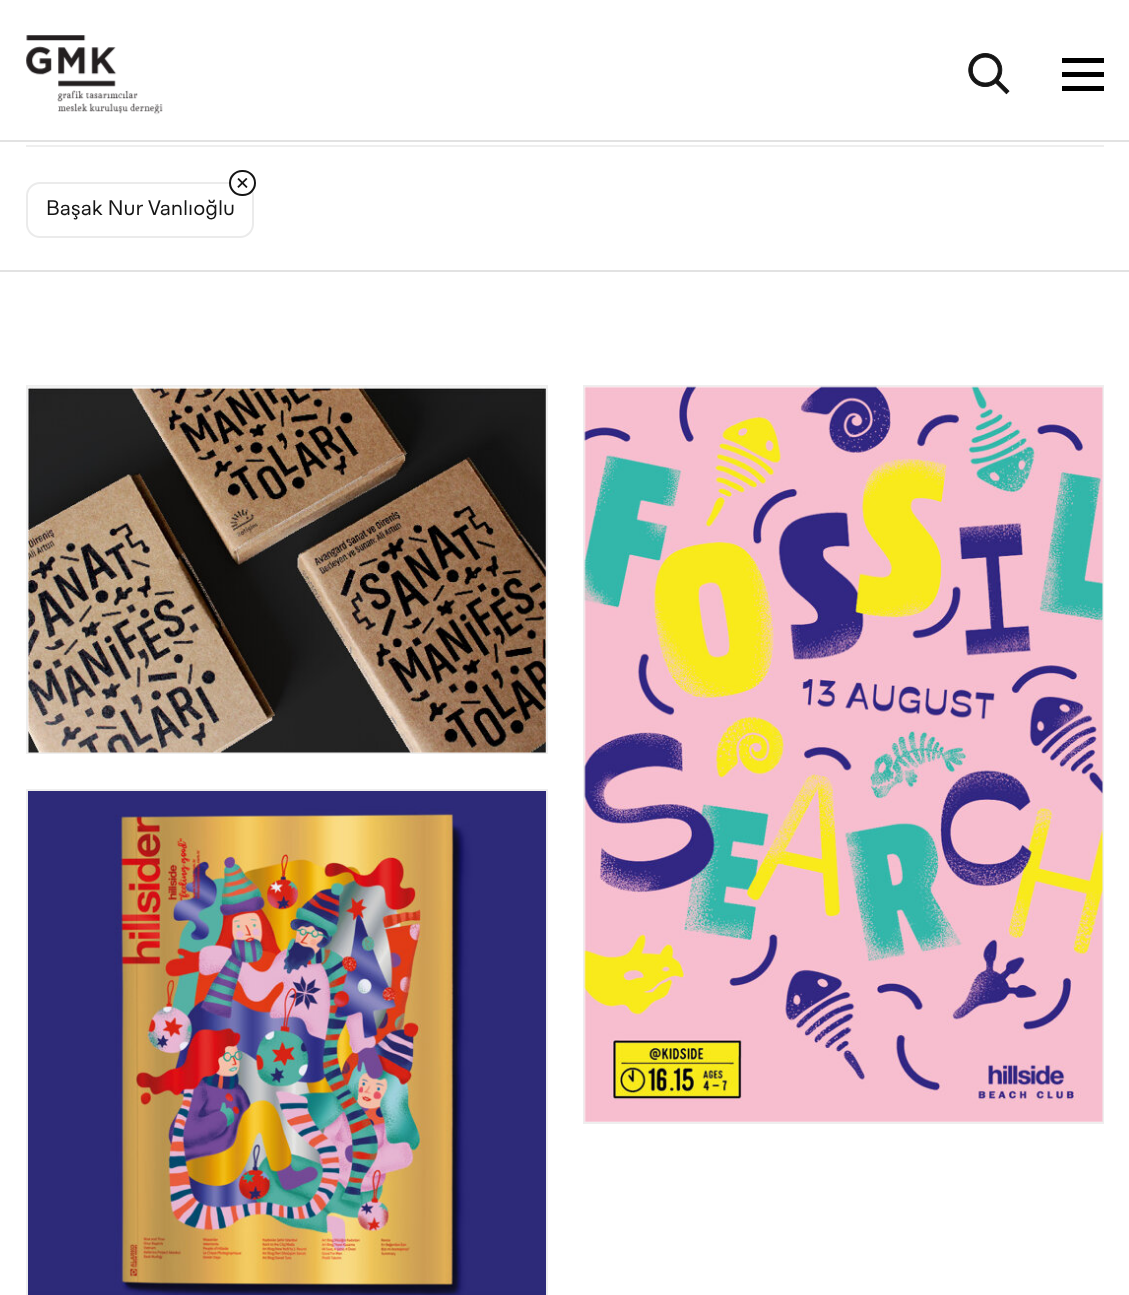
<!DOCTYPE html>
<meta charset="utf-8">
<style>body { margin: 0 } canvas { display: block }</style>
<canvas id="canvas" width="1129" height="1295"></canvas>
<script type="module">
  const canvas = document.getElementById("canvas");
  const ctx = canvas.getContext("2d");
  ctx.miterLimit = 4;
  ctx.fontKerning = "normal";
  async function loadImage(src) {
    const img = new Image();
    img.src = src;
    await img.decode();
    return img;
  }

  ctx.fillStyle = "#ffffff";
  ctx.fillRect(0, 0, 1129, 1295);
  ctx.drawImage(await loadImage("img1.png"), 26, 35, 137, 80);
  ctx.drawImage(await loadImage("img2.png"), 968, 53, 42, 42);
  ctx.fillStyle = "#000000";
  ctx.fillRect(1062, 58, 42, 5);
  ctx.fillRect(1062, 72, 42, 5);
  ctx.fillRect(1062, 86, 42, 5);
  ctx.fillStyle = "#e2e2e2";
  ctx.fillRect(0, 140, 1129, 2);
  ctx.fillRect(0, 270, 1129, 2);
  ctx.fillStyle = "#eeeeee";
  ctx.fillRect(26, 145, 1078, 2);
  ctx.beginPath();
  ctx.roundRect(27, 183, 226, 54, 13);
  ctx.strokeStyle = "#ebebeb";
  ctx.lineWidth = 2;
  ctx.stroke();
  ctx.fillStyle = "#ffffff";
  ctx.beginPath();
  ctx.roundRect(230, 171, 25, 24, 12);
  ctx.fill();
  ctx.strokeStyle = "#151515";
  ctx.stroke();
  ctx.drawImage(await loadImage("img3.png"), 237, 178, 11, 10);
  ctx.font = "21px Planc";
  ctx.fillStyle = "#151515";
  ctx.fillText("Başak Nur Vanlıoğlu", 46, 215);
  ctx.strokeStyle = "#eeeeee";
  ctx.strokeRect(27, 386, 520, 367);
  ctx.drawImage(await loadImage("img4.png"), 28, 386, 518, 367);
  ctx.strokeRect(584, 386, 519, 737);
  ctx.drawImage(await loadImage("img5.png"), 584, 386, 519, 736);
  ctx.strokeRect(27, 790, 520, 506);
  ctx.drawImage(await loadImage("img6.png"), 28, 791, 518, 504);
</script>
